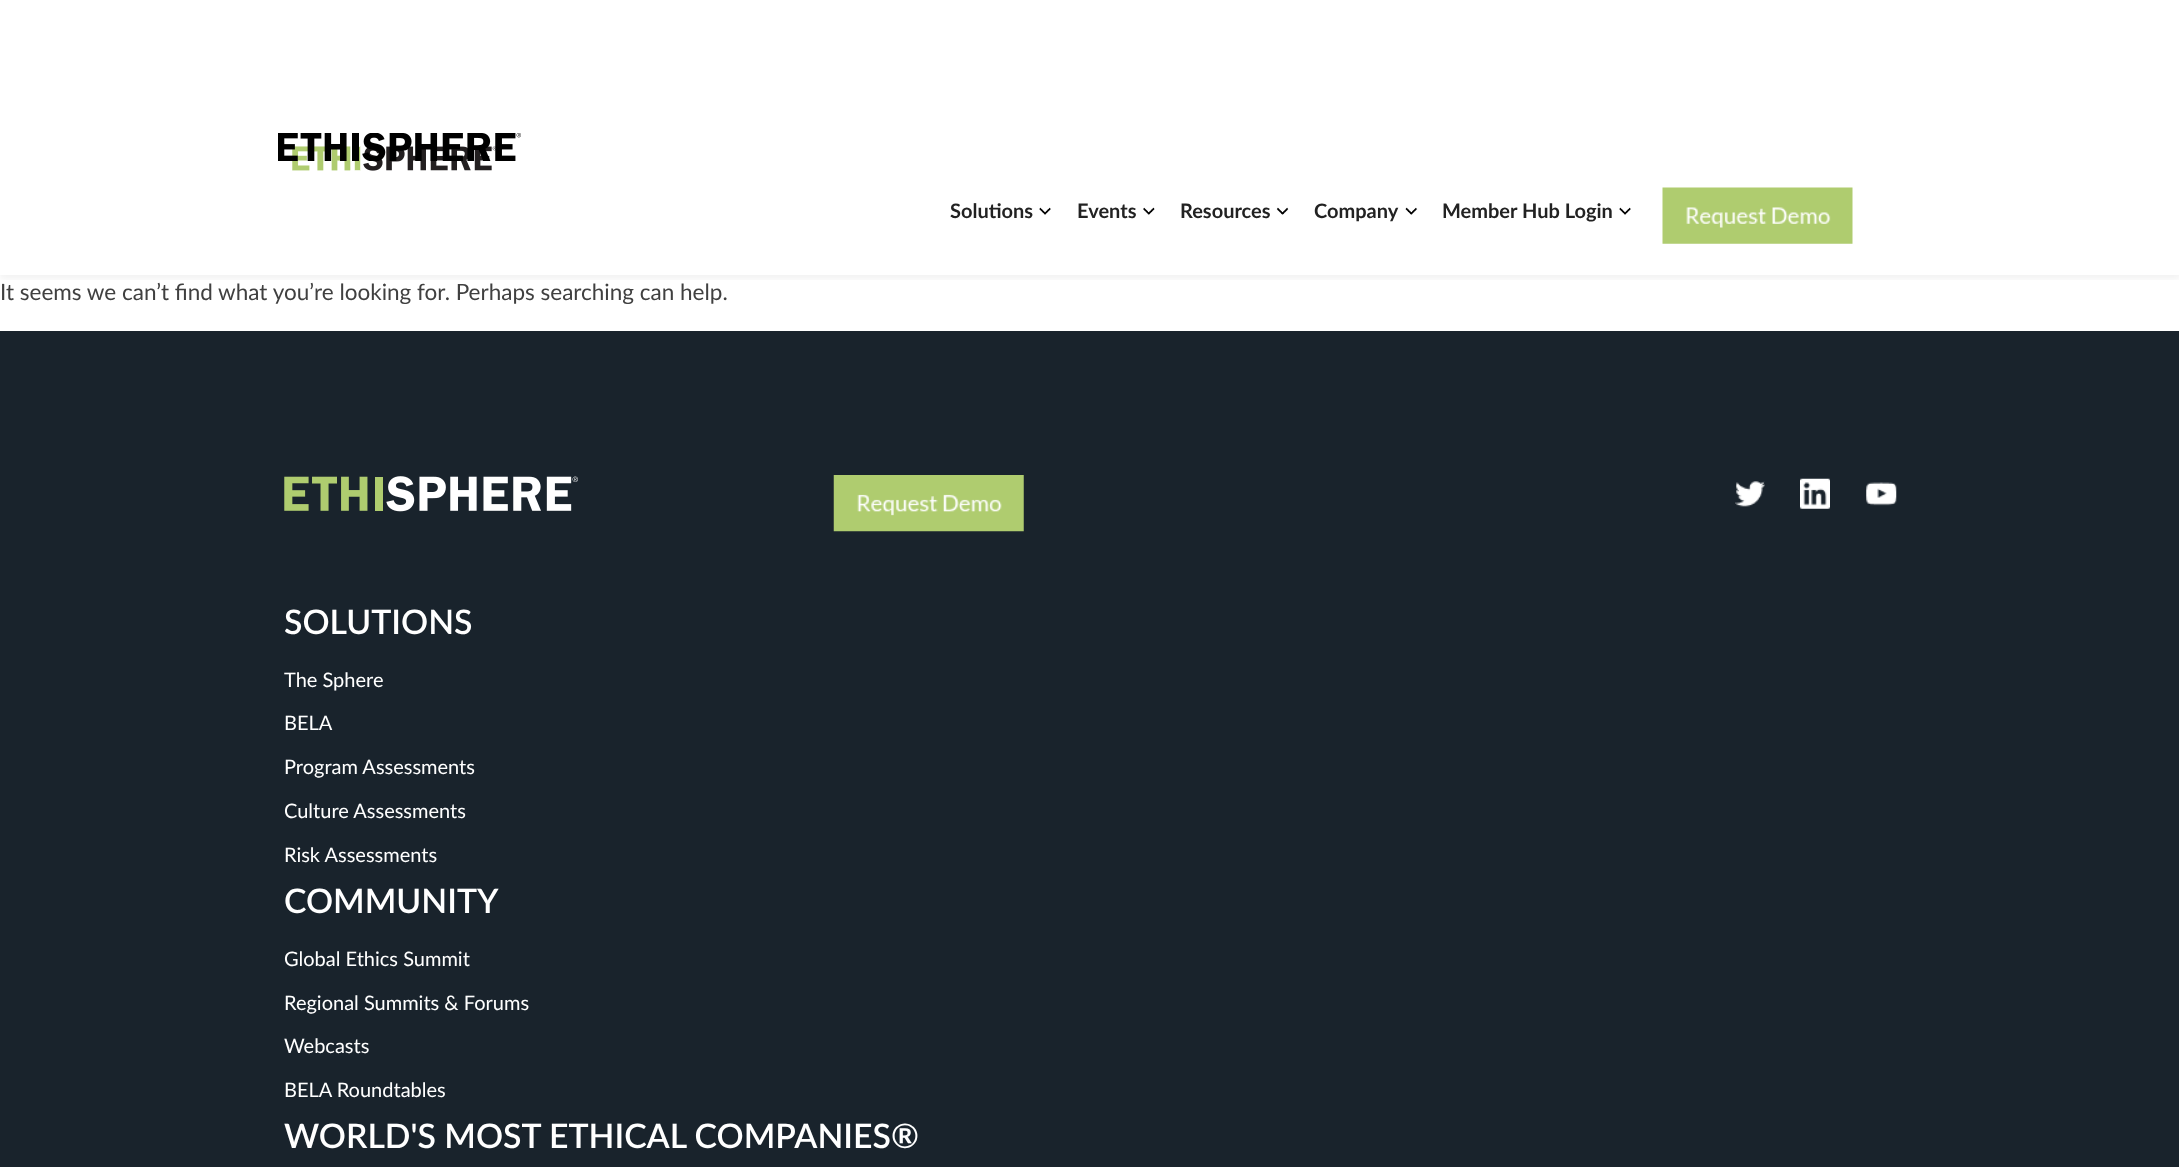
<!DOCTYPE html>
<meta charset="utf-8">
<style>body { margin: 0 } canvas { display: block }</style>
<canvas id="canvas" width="2179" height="1167"></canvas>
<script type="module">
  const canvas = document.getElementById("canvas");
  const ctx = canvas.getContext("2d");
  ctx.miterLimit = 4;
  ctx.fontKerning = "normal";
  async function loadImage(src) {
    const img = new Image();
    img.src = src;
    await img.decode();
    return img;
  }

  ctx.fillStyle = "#ffffff";
  ctx.fillRect(0, 0, 2179, 1167);
  ctx.save();
  ctx.beginPath();
  ctx.rect(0, 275, 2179, 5);
  ctx.clip();
  ctx.fillStyle = "rgba(0, 0, 0, 0.05)";
  ctx.filter = "blur(3px)";
  ctx.beginPath();
  ctx.rect(0, 98, 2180, 181);
  ctx.fill();
  ctx.filter = "none";
  ctx.restore();
  ctx.drawImage(await loadImage("img1.png"), 292, 146, 204, 25);
  ctx.drawImage(await loadImage("img2.png"), 278, 133, 243, 28);
  ctx.font = "bold 20px Lato";
  ctx.fillStyle = "#222222";
  ctx.fillText("Solutions", 950, 218);
  ctx.drawImage(await loadImage("img3.png"), 1039, 207, 12, 8);
  ctx.fillText("Events", 1077, 218);
  ctx.drawImage(await loadImage("img4.png"), 1143, 207, 12, 8);
  ctx.fillText("Resources", 1180, 218);
  ctx.drawImage(await loadImage("img5.png"), 1276, 207, 13, 8);
  ctx.fillText("Company", 1314, 218);
  ctx.drawImage(await loadImage("img6.png"), 1405, 207, 13, 8);
  ctx.fillText("Member Hub Login", 1442, 218);
  ctx.drawImage(await loadImage("img7.png"), 1619, 207, 12, 8);
  ctx.drawImage(await loadImage("img8.png"), 1662, 187, 191, 57);
  ctx.font = "22.5px Lato";
  ctx.fillStyle = "#404040";
  ctx.fillText("It seems we can’t find what you’re looking for. Perhaps searching can help.", 0, 300);
  ctx.fillStyle = "#19232c";
  ctx.fillRect(0, 331, 2179, 836);
  ctx.drawImage(await loadImage("img9.png"), 284, 476, 294, 36);
  ctx.drawImage(await loadImage("img10.png"), 833, 475, 191, 57);
  ctx.drawImage(await loadImage("img11.png"), 1735, 481, 30, 26);
  ctx.drawImage(await loadImage("img12.png"), 1800, 478, 30, 31);
  ctx.drawImage(await loadImage("img13.png"), 1866, 482, 31, 24);
  ctx.font = "600 33.75px Lato";
  ctx.fillStyle = "#ffffff";
  ctx.fillText("SOLUTIONS", 284, 634);
  ctx.font = "20px Lato";
  ctx.fillText("The Sphere", 284, 687);
  ctx.fillText("BELA", 284, 730);
  ctx.fillText("Program Assessments", 284, 774);
  ctx.fillText("Culture Assessments", 284, 818);
  ctx.fillText("Risk Assessments", 284, 862);
  ctx.font = "600 33.75px Lato";
  ctx.fillText("COMMUNITY", 284, 913);
  ctx.font = "20px Lato";
  ctx.fillText("Global Ethics Summit", 284, 966);
  ctx.fillText("Regional Summits & Forums", 284, 1010);
  ctx.fillText("Webcasts", 284, 1053);
  ctx.fillText("BELA Roundtables", 284, 1097);
  ctx.font = "600 33.75px Lato";
  ctx.fillText("WORLD'S MOST ETHICAL COMPANIES®", 284, 1148);
</script>
